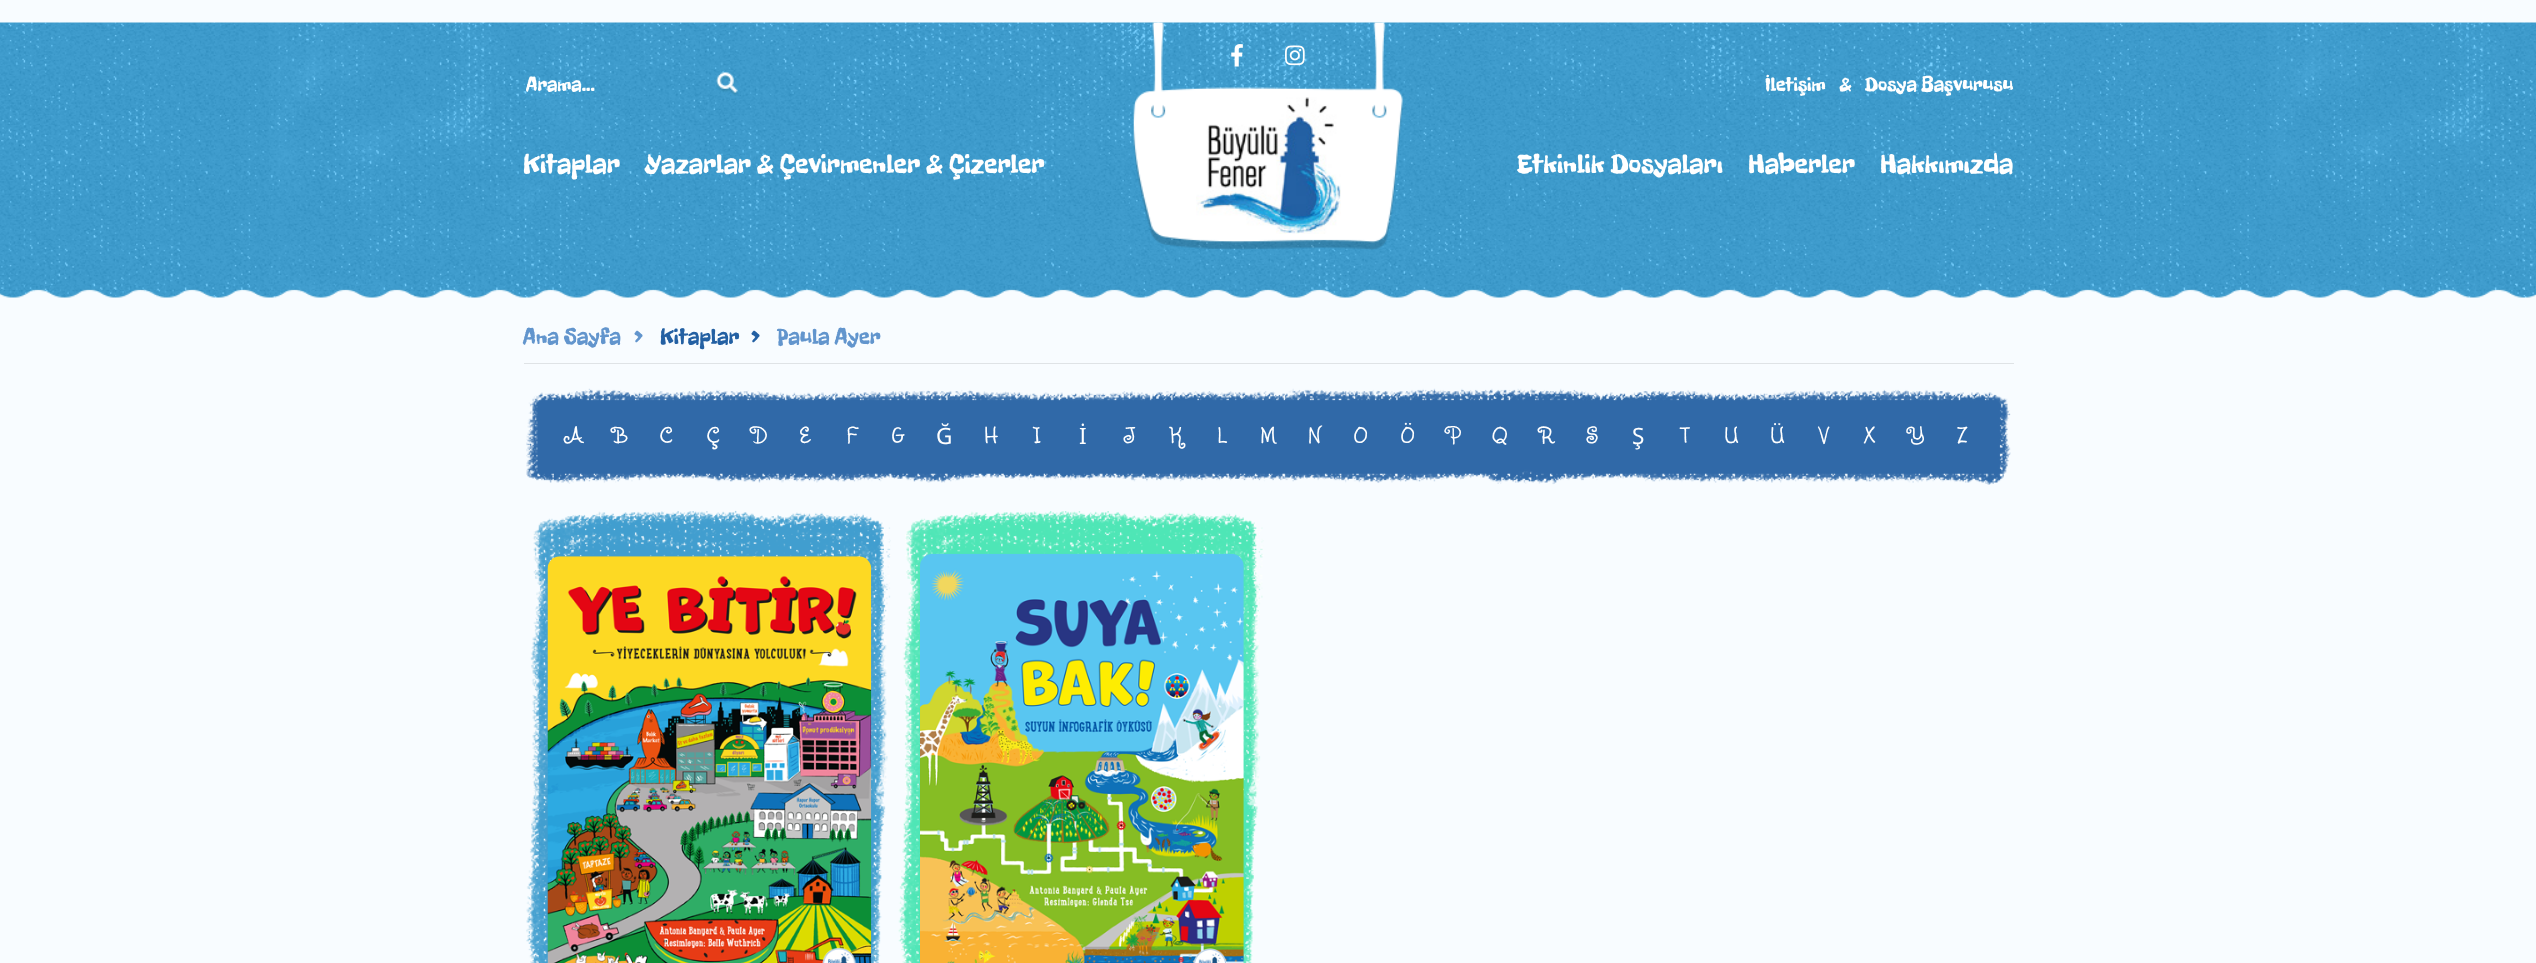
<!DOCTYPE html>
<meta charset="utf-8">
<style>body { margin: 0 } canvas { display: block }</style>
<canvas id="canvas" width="2536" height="963"></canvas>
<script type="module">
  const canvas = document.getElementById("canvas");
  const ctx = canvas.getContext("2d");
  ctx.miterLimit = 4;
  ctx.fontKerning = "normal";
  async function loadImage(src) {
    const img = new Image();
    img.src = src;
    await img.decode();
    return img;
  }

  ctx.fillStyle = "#f8fcff";
  ctx.fillRect(0, 0, 2536, 963);
  ctx.drawImage(await loadImage("img1.png"), 0, 22, 2536, 276);
  ctx.drawImage(await loadImage("img2.png"), 1133, 22, 270, 228);
  ctx.drawImage(await loadImage("img3.png"), 1231, 44, 12, 23);
  ctx.drawImage(await loadImage("img4.png"), 1285, 45, 20, 21);
  ctx.drawImage(await loadImage("img5.png"), 1196, 97, 145, 137);
  ctx.save();
  ctx.beginPath();
  ctx.rect(526, 73, 183, 23);
  ctx.clip();
  ctx.font = "20px Freckle Face";
  ctx.fillStyle = "#ffffff";
  ctx.fillText("Arama...", 526, 91);
  ctx.restore();
  ctx.drawImage(await loadImage("img6.png"), 716, 72, 22, 24);
  ctx.font = "20px Freckle Face";
  ctx.fillStyle = "#ffffff";
  ctx.fillText("İletişim   &", 1765, 91);
  ctx.fillText("Dosya Başvurusu", 1865, 91);
  ctx.font = "27.5px Freckle Face";
  ctx.fillText("Kitaplar", 523, 173);
  ctx.fillText("Yazarlar & Çevirmenler & Çizerler", 645, 173);
  ctx.fillText("Etkinlik Dosyaları", 1517, 173);
  ctx.fillText("Haberler", 1748, 173);
  ctx.fillText("Hakkımızda", 1880, 173);
  ctx.fillStyle = "#dfe3e6";
  ctx.fillRect(524, 363, 1490, 1);
  ctx.font = "22.5px Freckle Face";
  ctx.fillStyle = "#6295cd";
  ctx.fillText("Ana Sayfa", 523, 344);
  ctx.fillText(">", 634, 344);
  ctx.fillStyle = "#2360a3";
  ctx.fillText("Kitaplar", 660, 344);
  ctx.fillText(">", 751, 344);
  ctx.fillStyle = "#6295cd";
  ctx.fillText("Paula Ayer", 777, 344);
  ctx.drawImage(await loadImage("img7.png"), 526, 388, 1485, 97);
  ctx.font = "22.5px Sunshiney";
  ctx.fillStyle = "#ffffff";
  ctx.fillText("A", 565, 443);
  ctx.fillText("B", 612, 443);
  ctx.fillText("C", 660, 443);
  ctx.fillText("Ç", 707, 443);
  ctx.fillText("D", 751, 443);
  ctx.fillText("E", 799, 443);
  ctx.fillText("F", 847, 443);
  ctx.fillText("G", 891, 443);
  ctx.font = "22.5px Noto Sans";
  ctx.fillText("Ğ", 936, 444);
  ctx.font = "22.5px Sunshiney";
  ctx.fillText("H", 984, 443);
  ctx.fillText("I", 1033, 443);
  ctx.font = "22.5px Noto Sans";
  ctx.fillText("İ", 1079, 444);
  ctx.font = "22.5px Sunshiney";
  ctx.fillText("J", 1124, 443);
  ctx.fillText("K", 1170, 443);
  ctx.fillText("L", 1217, 443);
  ctx.fillText("M", 1260, 443);
  ctx.fillText("N", 1308, 443);
  ctx.fillText("O", 1354, 443);
  ctx.fillText("Ö", 1401, 443);
  ctx.fillText("P", 1447, 443);
  ctx.fillText("Q", 1492, 443);
  ctx.fillText("R", 1539, 443);
  ctx.fillText("S", 1586, 443);
  ctx.font = "22.5px Noto Sans";
  ctx.fillText("Ş", 1632, 444);
  ctx.font = "22.5px Sunshiney";
  ctx.fillText("T", 1681, 443);
  ctx.fillText("U", 1724, 443);
  ctx.fillText("Ü", 1770, 443);
  ctx.fillText("V", 1819, 443);
  ctx.fillText("X", 1864, 443);
  ctx.fillText("Y", 1908, 443);
  ctx.fillText("Z", 1958, 443);
  ctx.drawImage(await loadImage("img8.png"), 526, 510, 365, 453);
  ctx.drawImage(await loadImage("img9.png"), 547, 556, 325, 407);
  ctx.drawImage(await loadImage("img10.png"), 898, 511, 366, 452);
  ctx.drawImage(await loadImage("img11.png"), 920, 553, 324, 410);
</script>
